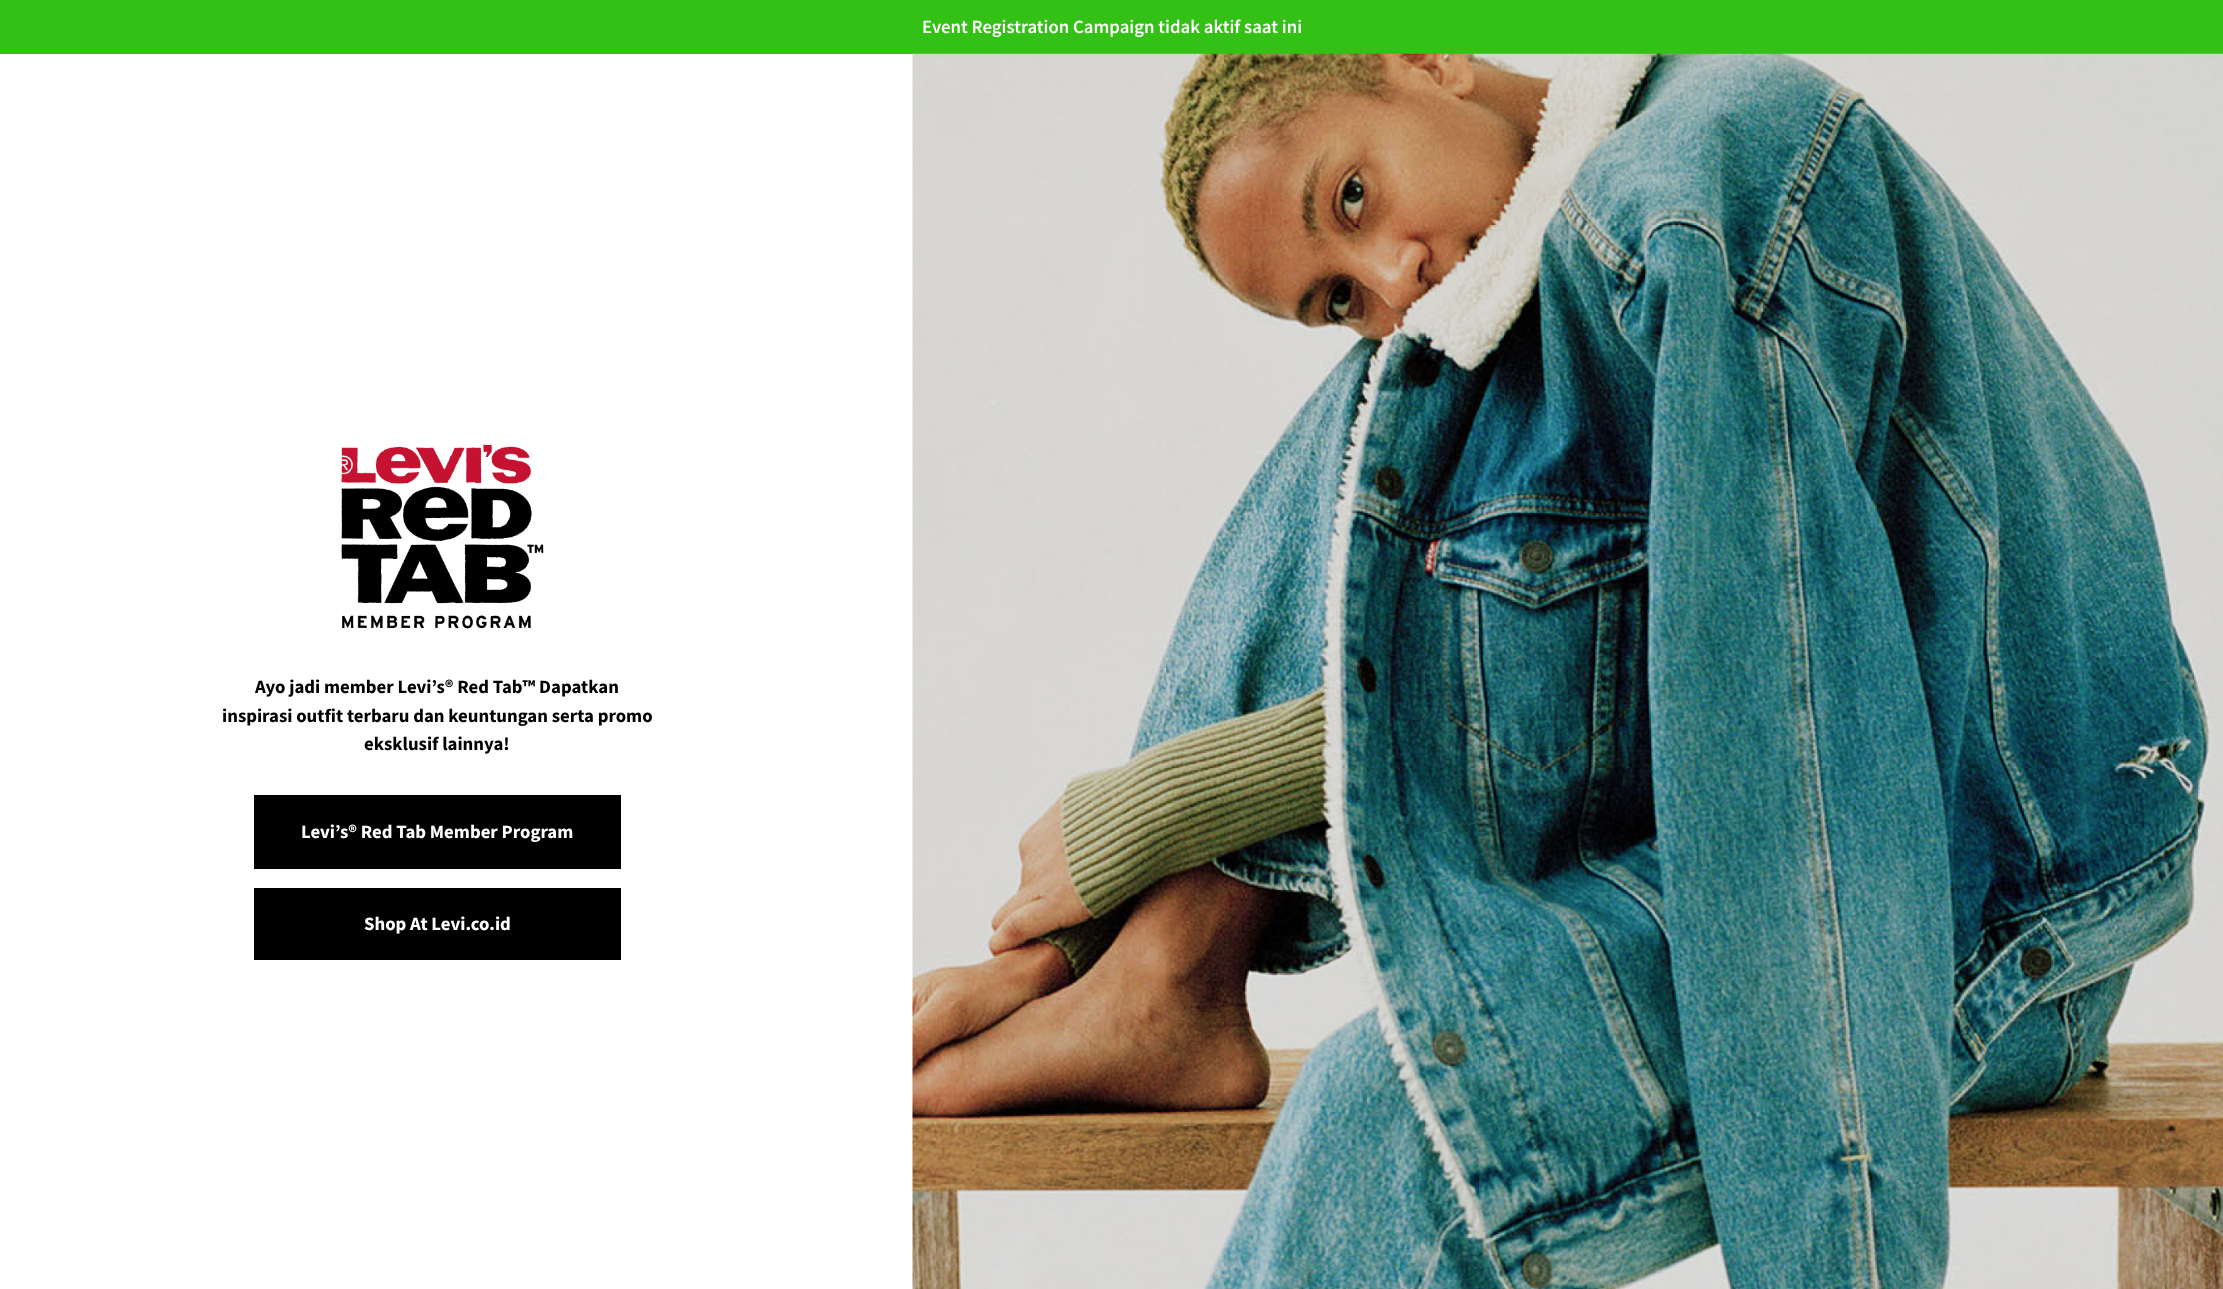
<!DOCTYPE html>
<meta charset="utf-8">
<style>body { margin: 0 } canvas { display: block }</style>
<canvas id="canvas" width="2223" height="1289"></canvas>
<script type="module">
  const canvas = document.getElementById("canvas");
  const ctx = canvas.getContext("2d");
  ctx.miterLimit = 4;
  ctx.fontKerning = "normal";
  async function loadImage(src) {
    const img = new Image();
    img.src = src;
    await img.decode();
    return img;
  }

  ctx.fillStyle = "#ffffff";
  ctx.fillRect(0, 0, 2223, 1289);
  ctx.fillStyle = "#32c114";
  ctx.fillRect(0, 0, 2223, 54);
  ctx.font = "600 18.75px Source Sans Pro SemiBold";
  ctx.fillStyle = "#ffffff";
  ctx.fillText("Event Registration Campaign tidak aktif saat ini", 922, 33);
  ctx.drawImage(await loadImage("img1.png"), 341, 444, 203, 185);
  ctx.font = "bold 18.75px Source Sans Pro";
  ctx.fillStyle = "#000000";
  ctx.fillText("Ayo jadi member Levi’s® Red Tab™ Dapatkan", 255, 693);
  ctx.fillText("inspirasi outfit terbaru dan keuntungan serta promo", 222, 722);
  ctx.fillText("eksklusif lainnya!", 364, 750);
  ctx.fillRect(254, 795, 367, 74);
  ctx.fillStyle = "#ffffff";
  ctx.fillText("Levi’s® Red Tab Member Program", 301, 838);
  ctx.fillStyle = "#000000";
  ctx.fillRect(254, 888, 367, 72);
  ctx.fillStyle = "#ffffff";
  ctx.fillText("Shop At Levi.co.id", 364, 930);
  ctx.drawImage(await loadImage("img2.png"), 912, 53, 1311, 1236);
</script>
